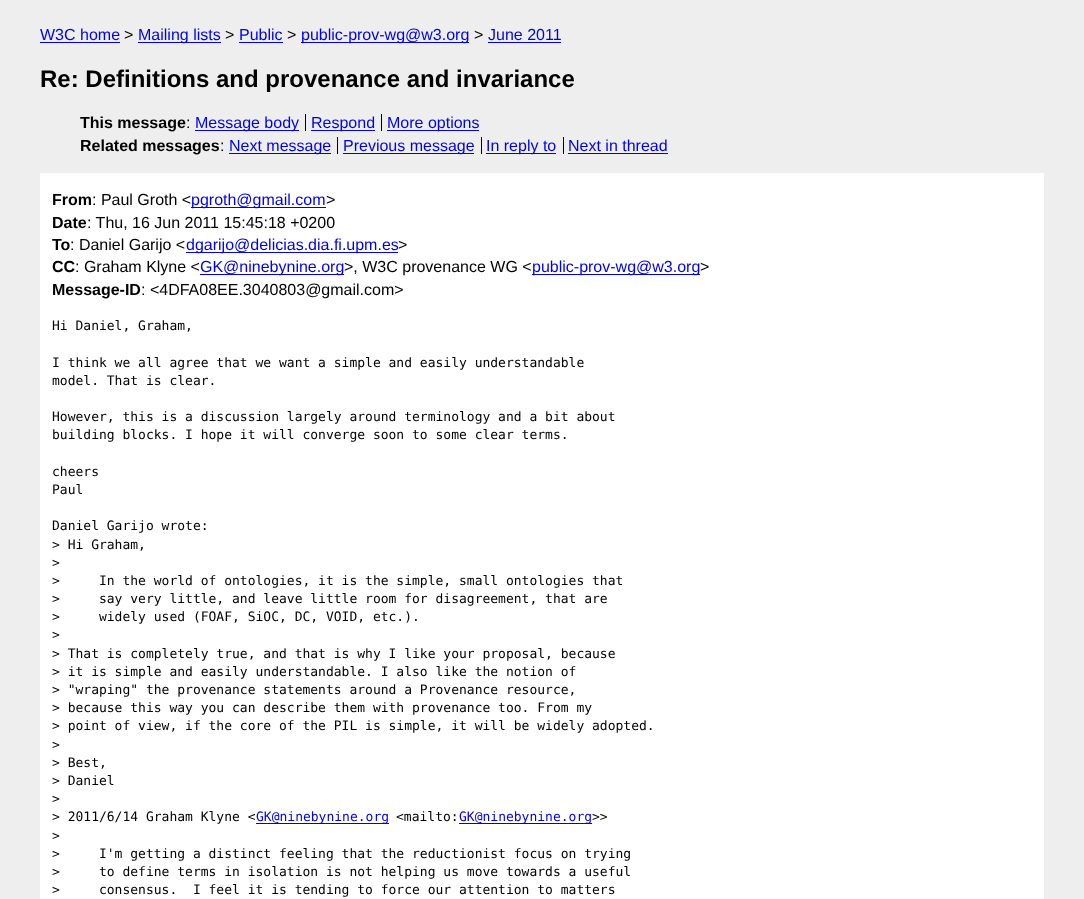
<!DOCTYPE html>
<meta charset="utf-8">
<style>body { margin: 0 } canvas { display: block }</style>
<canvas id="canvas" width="1084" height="899"></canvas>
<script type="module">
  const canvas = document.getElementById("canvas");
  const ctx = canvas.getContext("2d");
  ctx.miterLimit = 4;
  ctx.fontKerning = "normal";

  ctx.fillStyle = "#eeeeee";
  ctx.fillRect(0, 0, 1084, 899);
  ctx.font = "16px Liberation Sans";
  ctx.fillStyle = "#0000ee";
  ctx.fillText("W3C home", 40, 40);
  ctx.fillRect(40, 42, 80, 1);
  ctx.fillStyle = "#000000";
  ctx.fillText(">", 124, 40);
  ctx.fillStyle = "#0000ee";
  ctx.fillRect(138, 42, 83, 1);
  ctx.fillText("Mailing lists", 138, 40);
  ctx.fillStyle = "#000000";
  ctx.fillText(">", 225, 40);
  ctx.fillStyle = "#0000ee";
  ctx.fillText("Public", 239, 40);
  ctx.fillRect(239, 42, 44, 1);
  ctx.fillStyle = "#000000";
  ctx.fillText(">", 287, 40);
  ctx.fillStyle = "#0000ee";
  ctx.fillRect(301, 42, 168, 1);
  ctx.fillText("public-prov-wg@w3.org", 301, 40);
  ctx.fillStyle = "#000000";
  ctx.fillText(">", 474, 40);
  ctx.fillStyle = "#0000ee";
  ctx.fillText("June 2011", 488, 40);
  ctx.fillRect(488, 42, 73, 1);
  ctx.font = "bold 24px Liberation Sans";
  ctx.fillStyle = "#000000";
  ctx.fillText("Re: Definitions and provenance and invariance", 40, 87);
  ctx.font = "bold 16px Liberation Sans";
  ctx.fillText("This message", 80, 128);
  ctx.font = "16px Liberation Sans";
  ctx.fillText(":", 186, 128);
  ctx.fillStyle = "#0000ee";
  ctx.fillRect(195, 130, 104, 1);
  ctx.fillText("Message body", 195, 128);
  ctx.fillRect(311, 130, 64, 1);
  ctx.fillText("Respond", 311, 128);
  ctx.fillStyle = "#000000";
  ctx.fillRect(305, 114, 1, 17);
  ctx.fillStyle = "#0000ee";
  ctx.fillRect(387, 130, 92, 1);
  ctx.fillText("More options", 387, 128);
  ctx.fillStyle = "#000000";
  ctx.fillRect(381, 114, 1, 17);
  ctx.font = "bold 16px Liberation Sans";
  ctx.fillText("Related messages", 80, 151);
  ctx.font = "16px Liberation Sans";
  ctx.fillText(":", 220, 151);
  ctx.fillStyle = "#0000ee";
  ctx.fillRect(229, 153, 102, 1);
  ctx.fillText("Next message", 229, 151);
  ctx.fillRect(343, 153, 131, 1);
  ctx.fillText("Previous message", 343, 151);
  ctx.fillStyle = "#000000";
  ctx.fillRect(337, 137, 1, 17);
  ctx.fillStyle = "#0000ee";
  ctx.fillRect(486, 153, 70, 1);
  ctx.fillText("In reply to", 486, 151);
  ctx.fillStyle = "#000000";
  ctx.fillRect(481, 137, 1, 17);
  ctx.fillStyle = "#0000ee";
  ctx.fillText("Next in thread", 568, 151);
  ctx.fillStyle = "#000000";
  ctx.fillRect(563, 137, 1, 17);
  ctx.fillStyle = "#0000ee";
  ctx.fillRect(568, 153, 100, 1);
  ctx.fillStyle = "#ffffff";
  ctx.fillRect(40, 173, 1004, 726);
  ctx.font = "bold 16px Liberation Sans";
  ctx.fillStyle = "#000000";
  ctx.fillText("From", 52, 205);
  ctx.font = "16px Liberation Sans";
  ctx.fillText(": Paul Groth <", 92, 205);
  ctx.fillStyle = "#0000ee";
  ctx.fillRect(191, 207, 135, 1);
  ctx.fillText("pgroth@gmail.com", 191, 205);
  ctx.fillStyle = "#000000";
  ctx.fillText(">", 326, 205);
  ctx.font = "bold 16px Liberation Sans";
  ctx.fillText("Date", 52, 228);
  ctx.font = "16px Liberation Sans";
  ctx.fillText(": Thu, 16 Jun 2011 15:45:18 +0200", 87, 228);
  ctx.font = "bold 16px Liberation Sans";
  ctx.fillText("To", 52, 250);
  ctx.font = "16px Liberation Sans";
  ctx.fillText(": Daniel Garijo <", 70, 250);
  ctx.fillStyle = "#0000ee";
  ctx.fillRect(186, 252, 212, 1);
  ctx.fillText("dgarijo@delicias.dia.fi.upm.es", 186, 250);
  ctx.fillStyle = "#000000";
  ctx.fillText(">", 398, 250);
  ctx.font = "bold 16px Liberation Sans";
  ctx.fillText("CC", 52, 272);
  ctx.font = "16px Liberation Sans";
  ctx.fillText(": Graham Klyne <", 75, 272);
  ctx.fillStyle = "#0000ee";
  ctx.fillRect(200, 274, 144, 1);
  ctx.fillText("GK@ninebynine.org", 200, 272);
  ctx.fillStyle = "#000000";
  ctx.fillText(">, W3C provenance WG <", 344, 272);
  ctx.fillStyle = "#0000ee";
  ctx.fillRect(532, 274, 168, 1);
  ctx.fillText("public-prov-wg@w3.org", 532, 272);
  ctx.fillStyle = "#000000";
  ctx.fillText(">", 700, 272);
  ctx.font = "bold 16px Liberation Sans";
  ctx.fillText("Message-ID", 52, 295);
  ctx.font = "16px Liberation Sans";
  ctx.fillText(": <4DFA08EE.3040803@gmail.com>", 141, 295);
  ctx.font = "13px DejaVu Sans Mono";
  ctx.fillText("Hi Daniel, Graham,", 52, 330);
  ctx.fillText("I think we all agree that we want a simple and easily understandable", 52, 367);
  ctx.fillText("model. That is clear.", 52, 385);
  ctx.fillText("However, this is a discussion largely around terminology and a bit about", 52, 421);
  ctx.fillText("building blocks. I hope it will converge soon to some clear terms.", 52, 439);
  ctx.fillText("cheers", 52, 476);
  ctx.fillText("Paul", 52, 494);
  ctx.fillText("Daniel Garijo wrote:", 52, 530);
  ctx.fillText("> Hi Graham,", 52, 549);
  ctx.fillText(">", 52, 567);
  ctx.fillText(">     In the world of ontologies, it is the simple, small ontologies that", 52, 585);
  ctx.fillText(">     say very little, and leave little room for disagreement, that are", 52, 603);
  ctx.fillText(">     widely used (FOAF, SiOC, DC, VOID, etc.).", 52, 621);
  ctx.fillText(">", 52, 639);
  ctx.fillText("> That is completely true, and that is why I like your proposal, because", 52, 658);
  ctx.fillText("> it is simple and easily understandable. I also like the notion of", 52, 676);
  ctx.fillText("> \"wraping\" the provenance statements around a Provenance resource,", 52, 694);
  ctx.fillText("> because this way you can describe them with provenance too. From my", 52, 712);
  ctx.fillText("> point of view, if the core of the PIL is simple, it will be widely adopted.", 52, 730);
  ctx.fillText(">", 52, 749);
  ctx.fillText("> Best,", 52, 767);
  ctx.fillText("> Daniel", 52, 785);
  ctx.fillText(">", 52, 803);
  ctx.fillText("> 2011/6/14 Graham Klyne <", 52, 821);
  ctx.fillStyle = "#0000ee";
  ctx.fillRect(256, 823, 133, 1);
  ctx.fillText("GK@ninebynine.org", 256, 821);
  ctx.fillStyle = "#000000";
  ctx.fillText("<mailto:", 396, 821);
  ctx.fillStyle = "#0000ee";
  ctx.fillRect(459, 823, 133, 1);
  ctx.fillText("GK@ninebynine.org", 459, 821);
  ctx.fillStyle = "#000000";
  ctx.fillText(">>", 592, 821);
  ctx.fillText(">", 52, 840);
  ctx.fillText(">     I'm getting a distinct feeling that the reductionist focus on trying", 52, 858);
  ctx.fillText(">     to define terms in isolation is not helping us move towards a useful", 52, 876);
  ctx.fillText(">     consensus.  I feel it is tending to force our attention to matters", 52, 894);
</script>
